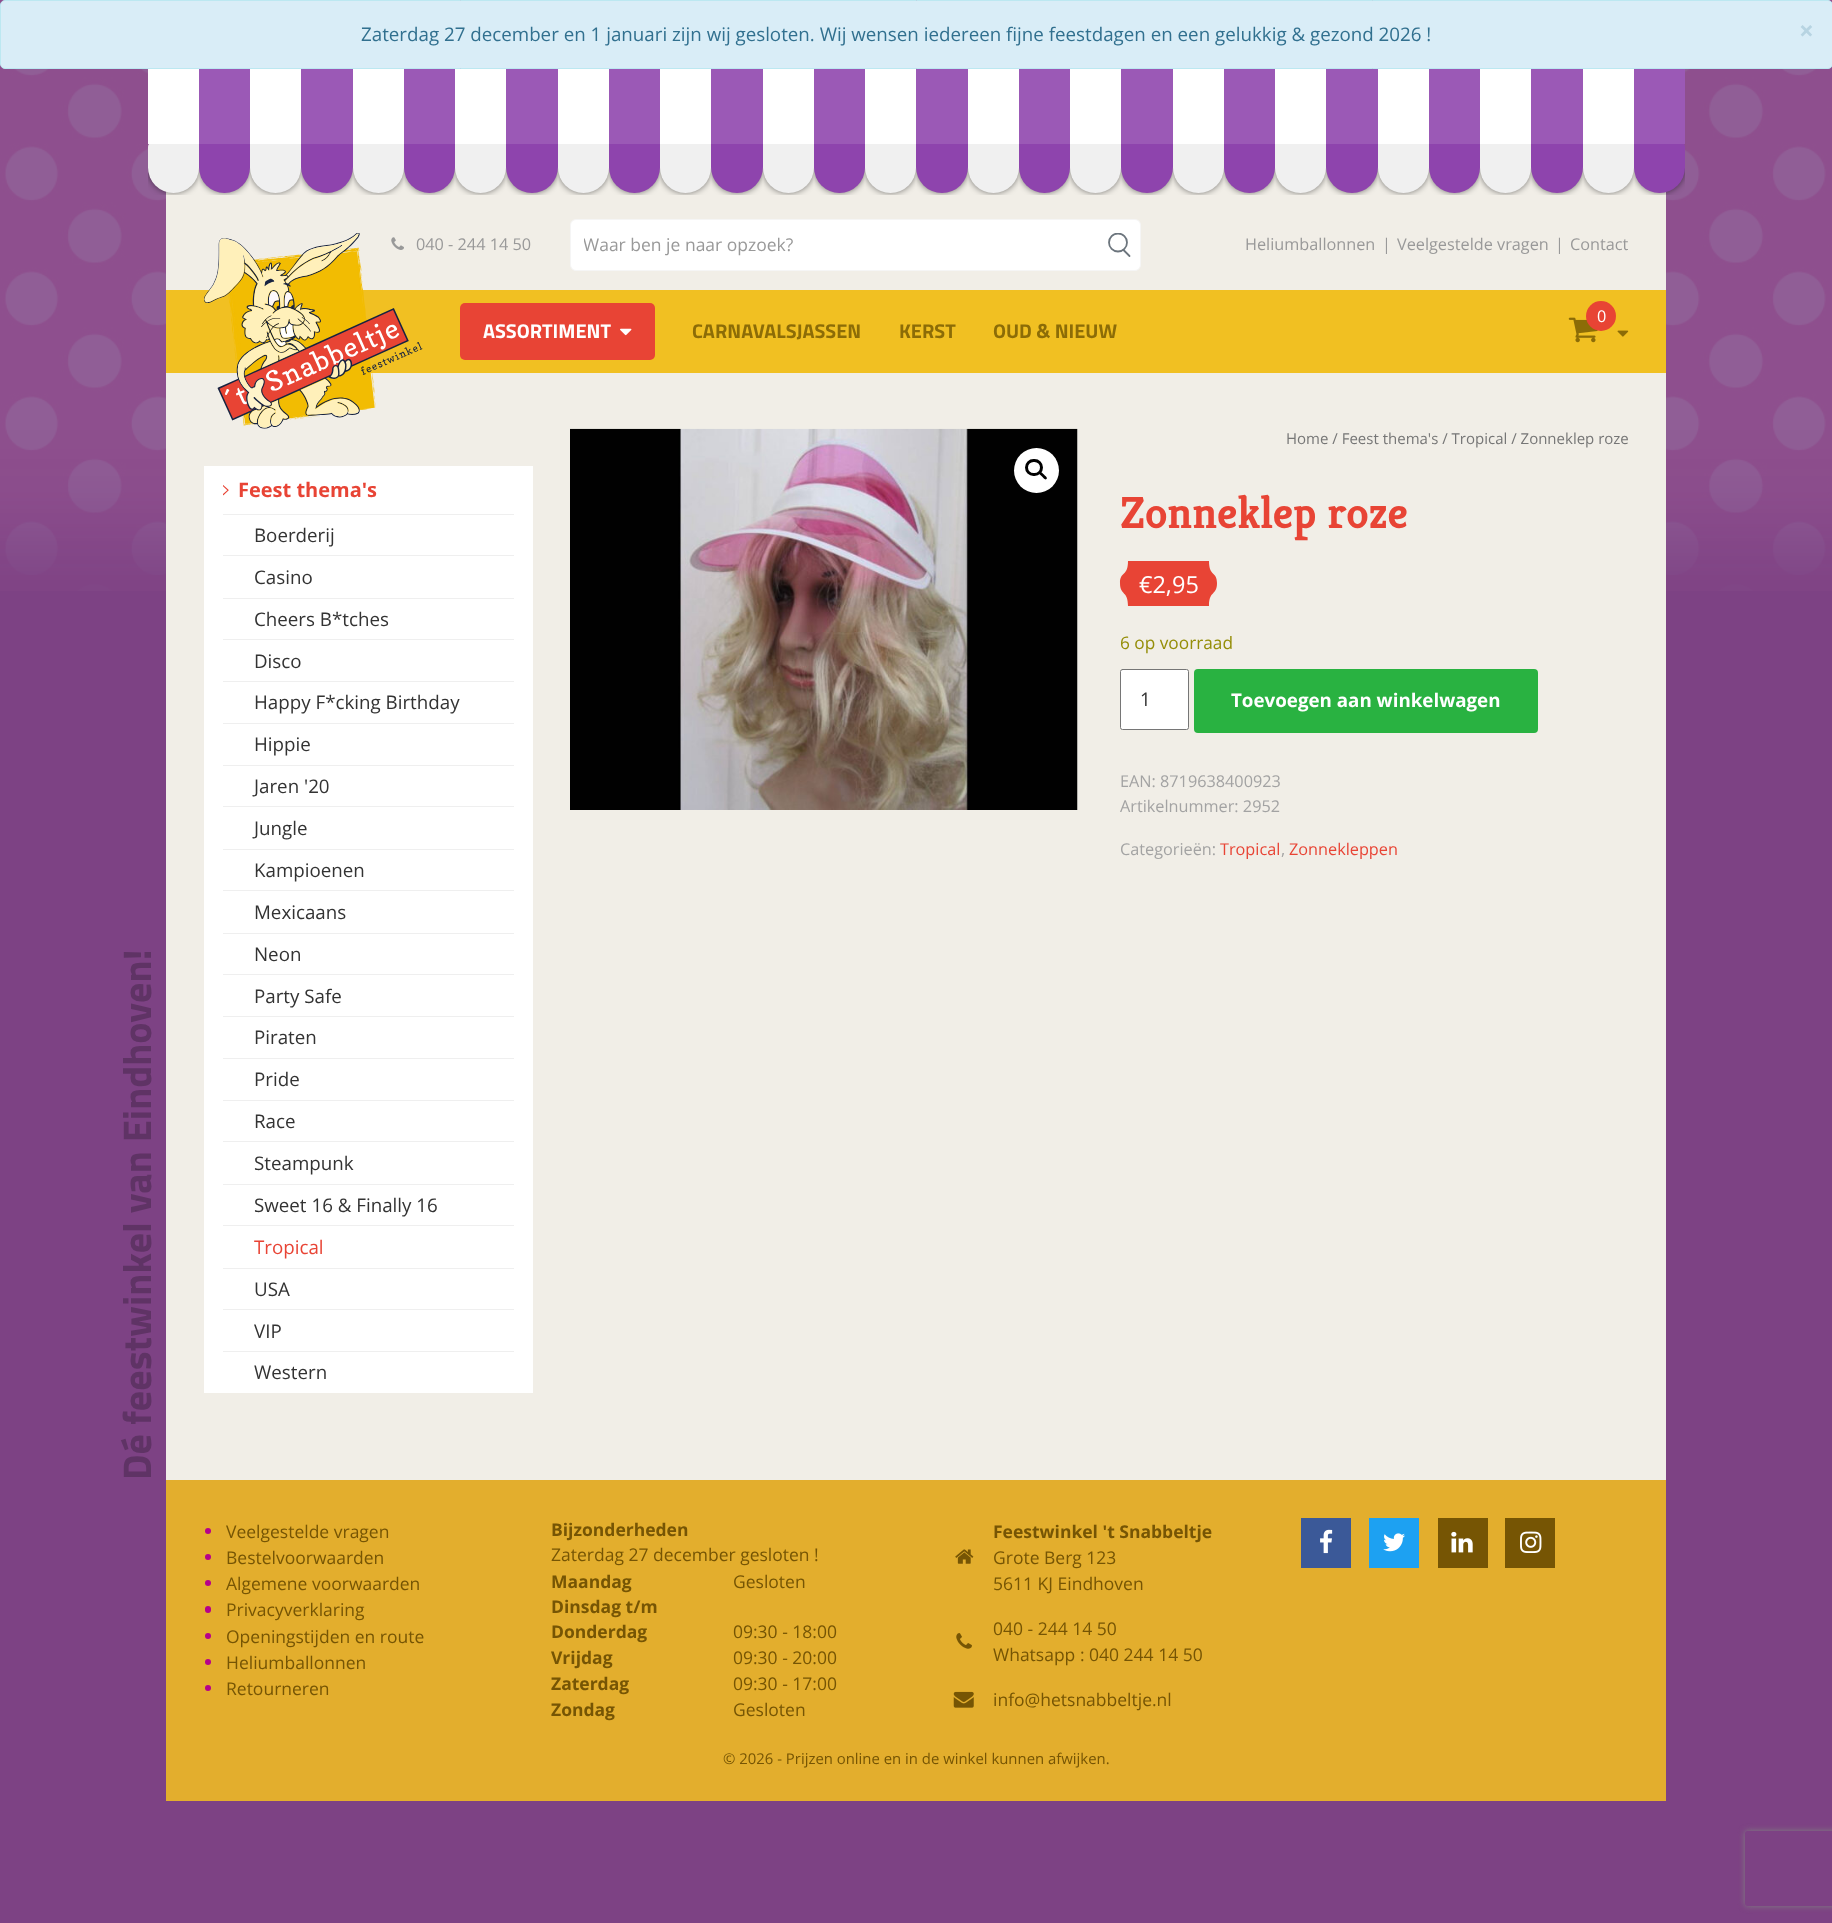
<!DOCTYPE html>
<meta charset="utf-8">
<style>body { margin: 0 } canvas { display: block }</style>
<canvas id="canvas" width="1832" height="1923"></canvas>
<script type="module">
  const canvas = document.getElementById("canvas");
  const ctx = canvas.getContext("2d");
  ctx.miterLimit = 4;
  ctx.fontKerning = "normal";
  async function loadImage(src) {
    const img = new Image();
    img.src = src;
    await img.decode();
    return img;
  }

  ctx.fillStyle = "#7d4284";
  ctx.fillRect(0, 0, 1832, 1923);
  ctx.drawImage(await loadImage("img1.png"), 0, 0, 1832, 591);
  ctx.fillStyle = "#d9edf7";
  ctx.beginPath();
  ctx.roundRect(0.5, 0.5, 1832, 68, 4.5);
  ctx.fill();
  ctx.strokeStyle = "#bce8f1";
  ctx.stroke();
  ctx.font = "18.75px Open Sans";
  ctx.fillStyle = "#31708f";
  ctx.fillText("Zaterdag 27 december en 1 januari zijn wij gesloten. Wij wensen iedereen fijne feestdagen en een gelukkig & gezond 2026 !", 361, 41);
  ctx.font = "bold 26px Open Sans";
  ctx.fillStyle = "#b7d4e2";
  ctx.fillText("×", 1799, 40);
  ctx.fillStyle = "#f1eee7";
  ctx.fillRect(166, 167, 1500, 1313);
  ctx.save();
  ctx.beginPath();
  ctx.rect(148, 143, 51, 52);
  ctx.clip();
  ctx.fillStyle = "rgba(0, 0, 0, 0.5)";
  ctx.filter = "blur(3px)";
  ctx.beginPath();
  ctx.roundRect(148, 143, 51, 50, 25);
  ctx.fill();
  ctx.filter = "none";
  ctx.restore();
  ctx.fillStyle = "#f0f0f0";
  ctx.beginPath();
  ctx.roundRect(148, 143, 51, 50, [3.92, 0, 25.5, 25.5]);
  ctx.fill();
  ctx.save();
  ctx.beginPath();
  ctx.rect(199, 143, 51, 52);
  ctx.clip();
  ctx.fillStyle = "rgba(0, 0, 0, 0.5)";
  ctx.filter = "blur(3px)";
  ctx.beginPath();
  ctx.roundRect(199, 143, 51, 50, 25);
  ctx.fill();
  ctx.filter = "none";
  ctx.restore();
  ctx.fillStyle = "#ffffff";
  ctx.fillRect(148, 69, 51, 75);
  ctx.fillStyle = "#8e44ad";
  ctx.beginPath();
  ctx.roundRect(199, 143, 51, 50, [0, 0, 25.5, 25.5]);
  ctx.fill();
  ctx.save();
  ctx.beginPath();
  ctx.rect(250, 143, 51, 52);
  ctx.clip();
  ctx.fillStyle = "rgba(0, 0, 0, 0.5)";
  ctx.filter = "blur(3px)";
  ctx.beginPath();
  ctx.roundRect(250, 143, 51, 50, 25);
  ctx.fill();
  ctx.filter = "none";
  ctx.restore();
  ctx.fillStyle = "#9b59b6";
  ctx.fillRect(199, 69, 51, 75);
  ctx.fillStyle = "#f0f0f0";
  ctx.beginPath();
  ctx.roundRect(250, 143, 51, 50, [0, 0, 25.5, 25.5]);
  ctx.fill();
  ctx.save();
  ctx.beginPath();
  ctx.rect(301, 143, 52, 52);
  ctx.clip();
  ctx.fillStyle = "rgba(0, 0, 0, 0.5)";
  ctx.filter = "blur(3px)";
  ctx.beginPath();
  ctx.roundRect(301, 143, 52, 50, 25);
  ctx.fill();
  ctx.filter = "none";
  ctx.restore();
  ctx.fillStyle = "#ffffff";
  ctx.fillRect(250, 69, 51, 75);
  ctx.fillStyle = "#8e44ad";
  ctx.beginPath();
  ctx.roundRect(301, 143, 52, 50, [0, 0, 26, 26]);
  ctx.fill();
  ctx.save();
  ctx.beginPath();
  ctx.rect(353, 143, 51, 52);
  ctx.clip();
  ctx.fillStyle = "rgba(0, 0, 0, 0.5)";
  ctx.filter = "blur(3px)";
  ctx.beginPath();
  ctx.roundRect(353, 143, 51, 50, 25);
  ctx.fill();
  ctx.filter = "none";
  ctx.restore();
  ctx.fillStyle = "#9b59b6";
  ctx.fillRect(301, 69, 52, 75);
  ctx.fillStyle = "#f0f0f0";
  ctx.beginPath();
  ctx.roundRect(353, 143, 51, 50, [0, 0, 25.5, 25.5]);
  ctx.fill();
  ctx.save();
  ctx.beginPath();
  ctx.rect(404, 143, 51, 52);
  ctx.clip();
  ctx.fillStyle = "rgba(0, 0, 0, 0.5)";
  ctx.filter = "blur(3px)";
  ctx.beginPath();
  ctx.roundRect(404, 143, 51, 50, 25);
  ctx.fill();
  ctx.filter = "none";
  ctx.restore();
  ctx.fillStyle = "#ffffff";
  ctx.fillRect(353, 69, 51, 75);
  ctx.fillStyle = "#8e44ad";
  ctx.beginPath();
  ctx.roundRect(404, 143, 51, 50, [0, 0, 25.5, 25.5]);
  ctx.fill();
  ctx.save();
  ctx.beginPath();
  ctx.rect(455, 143, 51, 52);
  ctx.clip();
  ctx.fillStyle = "rgba(0, 0, 0, 0.5)";
  ctx.filter = "blur(3px)";
  ctx.beginPath();
  ctx.roundRect(455, 143, 51, 50, 25);
  ctx.fill();
  ctx.filter = "none";
  ctx.restore();
  ctx.fillStyle = "#9b59b6";
  ctx.fillRect(404, 69, 51, 75);
  ctx.fillStyle = "#f0f0f0";
  ctx.beginPath();
  ctx.roundRect(455, 143, 51, 50, [0, 0, 25.5, 25.5]);
  ctx.fill();
  ctx.save();
  ctx.beginPath();
  ctx.rect(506, 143, 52, 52);
  ctx.clip();
  ctx.fillStyle = "rgba(0, 0, 0, 0.5)";
  ctx.filter = "blur(3px)";
  ctx.beginPath();
  ctx.roundRect(506, 143, 52, 50, 25);
  ctx.fill();
  ctx.filter = "none";
  ctx.restore();
  ctx.fillStyle = "#ffffff";
  ctx.fillRect(455, 69, 51, 75);
  ctx.fillStyle = "#8e44ad";
  ctx.beginPath();
  ctx.roundRect(506, 143, 52, 50, [0, 0, 26, 26]);
  ctx.fill();
  ctx.save();
  ctx.beginPath();
  ctx.rect(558, 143, 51, 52);
  ctx.clip();
  ctx.fillStyle = "rgba(0, 0, 0, 0.5)";
  ctx.filter = "blur(3px)";
  ctx.beginPath();
  ctx.roundRect(558, 143, 51, 50, 25);
  ctx.fill();
  ctx.filter = "none";
  ctx.restore();
  ctx.fillStyle = "#9b59b6";
  ctx.fillRect(506, 69, 52, 75);
  ctx.fillStyle = "#f0f0f0";
  ctx.beginPath();
  ctx.roundRect(558, 143, 51, 50, [0, 0, 25.5, 25.5]);
  ctx.fill();
  ctx.save();
  ctx.beginPath();
  ctx.rect(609, 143, 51, 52);
  ctx.clip();
  ctx.fillStyle = "rgba(0, 0, 0, 0.5)";
  ctx.filter = "blur(3px)";
  ctx.beginPath();
  ctx.roundRect(609, 143, 51, 50, 25);
  ctx.fill();
  ctx.filter = "none";
  ctx.restore();
  ctx.fillStyle = "#ffffff";
  ctx.fillRect(558, 69, 51, 75);
  ctx.fillStyle = "#8e44ad";
  ctx.beginPath();
  ctx.roundRect(609, 143, 51, 50, [0, 0, 25.5, 25.5]);
  ctx.fill();
  ctx.save();
  ctx.beginPath();
  ctx.rect(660, 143, 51, 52);
  ctx.clip();
  ctx.fillStyle = "rgba(0, 0, 0, 0.5)";
  ctx.filter = "blur(3px)";
  ctx.beginPath();
  ctx.roundRect(660, 143, 51, 50, 25);
  ctx.fill();
  ctx.filter = "none";
  ctx.restore();
  ctx.fillStyle = "#9b59b6";
  ctx.fillRect(609, 69, 51, 75);
  ctx.fillStyle = "#f0f0f0";
  ctx.beginPath();
  ctx.roundRect(660, 143, 51, 50, [0, 0, 25.5, 25.5]);
  ctx.fill();
  ctx.save();
  ctx.beginPath();
  ctx.rect(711, 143, 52, 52);
  ctx.clip();
  ctx.fillStyle = "rgba(0, 0, 0, 0.5)";
  ctx.filter = "blur(3px)";
  ctx.beginPath();
  ctx.roundRect(711, 143, 52, 50, 25);
  ctx.fill();
  ctx.filter = "none";
  ctx.restore();
  ctx.fillStyle = "#ffffff";
  ctx.fillRect(660, 69, 51, 75);
  ctx.fillStyle = "#8e44ad";
  ctx.beginPath();
  ctx.roundRect(711, 143, 52, 50, [0, 0, 26, 26]);
  ctx.fill();
  ctx.save();
  ctx.beginPath();
  ctx.rect(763, 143, 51, 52);
  ctx.clip();
  ctx.fillStyle = "rgba(0, 0, 0, 0.5)";
  ctx.filter = "blur(3px)";
  ctx.beginPath();
  ctx.roundRect(763, 143, 51, 50, 25);
  ctx.fill();
  ctx.filter = "none";
  ctx.restore();
  ctx.fillStyle = "#9b59b6";
  ctx.fillRect(711, 69, 52, 75);
  ctx.fillStyle = "#f0f0f0";
  ctx.beginPath();
  ctx.roundRect(763, 143, 51, 50, [0, 0, 25.5, 25.5]);
  ctx.fill();
  ctx.save();
  ctx.beginPath();
  ctx.rect(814, 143, 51, 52);
  ctx.clip();
  ctx.fillStyle = "rgba(0, 0, 0, 0.5)";
  ctx.filter = "blur(3px)";
  ctx.beginPath();
  ctx.roundRect(814, 143, 51, 50, 25);
  ctx.fill();
  ctx.filter = "none";
  ctx.restore();
  ctx.fillStyle = "#ffffff";
  ctx.fillRect(763, 69, 51, 75);
  ctx.fillStyle = "#8e44ad";
  ctx.beginPath();
  ctx.roundRect(814, 143, 51, 50, [0, 0, 25.5, 25.5]);
  ctx.fill();
  ctx.save();
  ctx.beginPath();
  ctx.rect(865, 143, 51, 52);
  ctx.clip();
  ctx.fillStyle = "rgba(0, 0, 0, 0.5)";
  ctx.filter = "blur(3px)";
  ctx.beginPath();
  ctx.roundRect(865, 143, 51, 50, 25);
  ctx.fill();
  ctx.filter = "none";
  ctx.restore();
  ctx.fillStyle = "#9b59b6";
  ctx.fillRect(814, 69, 51, 75);
  ctx.fillStyle = "#f0f0f0";
  ctx.beginPath();
  ctx.roundRect(865, 143, 51, 50, [0, 0, 25.5, 25.5]);
  ctx.fill();
  ctx.save();
  ctx.beginPath();
  ctx.rect(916, 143, 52, 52);
  ctx.clip();
  ctx.fillStyle = "rgba(0, 0, 0, 0.5)";
  ctx.filter = "blur(3px)";
  ctx.beginPath();
  ctx.roundRect(916, 143, 52, 50, 25);
  ctx.fill();
  ctx.filter = "none";
  ctx.restore();
  ctx.fillStyle = "#ffffff";
  ctx.fillRect(865, 69, 51, 75);
  ctx.fillStyle = "#8e44ad";
  ctx.beginPath();
  ctx.roundRect(916, 143, 52, 50, [0, 0, 26, 26]);
  ctx.fill();
  ctx.save();
  ctx.beginPath();
  ctx.rect(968, 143, 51, 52);
  ctx.clip();
  ctx.fillStyle = "rgba(0, 0, 0, 0.5)";
  ctx.filter = "blur(3px)";
  ctx.beginPath();
  ctx.roundRect(968, 143, 51, 50, 25);
  ctx.fill();
  ctx.filter = "none";
  ctx.restore();
  ctx.fillStyle = "#9b59b6";
  ctx.fillRect(916, 69, 52, 75);
  ctx.fillStyle = "#f0f0f0";
  ctx.beginPath();
  ctx.roundRect(968, 143, 51, 50, [0, 0, 25.5, 25.5]);
  ctx.fill();
  ctx.save();
  ctx.beginPath();
  ctx.rect(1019, 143, 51, 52);
  ctx.clip();
  ctx.fillStyle = "rgba(0, 0, 0, 0.5)";
  ctx.filter = "blur(3px)";
  ctx.beginPath();
  ctx.roundRect(1019, 143, 51, 50, 25);
  ctx.fill();
  ctx.filter = "none";
  ctx.restore();
  ctx.fillStyle = "#ffffff";
  ctx.fillRect(968, 69, 51, 75);
  ctx.fillStyle = "#8e44ad";
  ctx.beginPath();
  ctx.roundRect(1019, 143, 51, 50, [0, 0, 25.5, 25.5]);
  ctx.fill();
  ctx.save();
  ctx.beginPath();
  ctx.rect(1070, 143, 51, 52);
  ctx.clip();
  ctx.fillStyle = "rgba(0, 0, 0, 0.5)";
  ctx.filter = "blur(3px)";
  ctx.beginPath();
  ctx.roundRect(1070, 143, 51, 50, 25);
  ctx.fill();
  ctx.filter = "none";
  ctx.restore();
  ctx.fillStyle = "#9b59b6";
  ctx.fillRect(1019, 69, 51, 75);
  ctx.fillStyle = "#f0f0f0";
  ctx.beginPath();
  ctx.roundRect(1070, 143, 51, 50, [0, 0, 25.5, 25.5]);
  ctx.fill();
  ctx.save();
  ctx.beginPath();
  ctx.rect(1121, 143, 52, 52);
  ctx.clip();
  ctx.fillStyle = "rgba(0, 0, 0, 0.5)";
  ctx.filter = "blur(3px)";
  ctx.beginPath();
  ctx.roundRect(1121, 143, 52, 50, 25);
  ctx.fill();
  ctx.filter = "none";
  ctx.restore();
  ctx.fillStyle = "#ffffff";
  ctx.fillRect(1070, 69, 51, 75);
  ctx.fillStyle = "#8e44ad";
  ctx.beginPath();
  ctx.roundRect(1121, 143, 52, 50, [0, 0, 26, 26]);
  ctx.fill();
  ctx.save();
  ctx.beginPath();
  ctx.rect(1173, 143, 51, 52);
  ctx.clip();
  ctx.fillStyle = "rgba(0, 0, 0, 0.5)";
  ctx.filter = "blur(3px)";
  ctx.beginPath();
  ctx.roundRect(1173, 143, 51, 50, 25);
  ctx.fill();
  ctx.filter = "none";
  ctx.restore();
  ctx.fillStyle = "#9b59b6";
  ctx.fillRect(1121, 69, 52, 75);
  ctx.fillStyle = "#f0f0f0";
  ctx.beginPath();
  ctx.roundRect(1173, 143, 51, 50, [0, 0, 25.5, 25.5]);
  ctx.fill();
  ctx.save();
  ctx.beginPath();
  ctx.rect(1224, 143, 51, 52);
  ctx.clip();
  ctx.fillStyle = "rgba(0, 0, 0, 0.5)";
  ctx.filter = "blur(3px)";
  ctx.beginPath();
  ctx.roundRect(1224, 143, 51, 50, 25);
  ctx.fill();
  ctx.filter = "none";
  ctx.restore();
  ctx.fillStyle = "#ffffff";
  ctx.fillRect(1173, 69, 51, 75);
  ctx.fillStyle = "#8e44ad";
  ctx.beginPath();
  ctx.roundRect(1224, 143, 51, 50, [0, 0, 25.5, 25.5]);
  ctx.fill();
  ctx.save();
  ctx.beginPath();
  ctx.rect(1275, 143, 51, 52);
  ctx.clip();
  ctx.fillStyle = "rgba(0, 0, 0, 0.5)";
  ctx.filter = "blur(3px)";
  ctx.beginPath();
  ctx.roundRect(1275, 143, 51, 50, 25);
  ctx.fill();
  ctx.filter = "none";
  ctx.restore();
  ctx.fillStyle = "#9b59b6";
  ctx.fillRect(1224, 69, 51, 75);
  ctx.fillStyle = "#f0f0f0";
  ctx.beginPath();
  ctx.roundRect(1275, 143, 51, 50, [0, 0, 25.5, 25.5]);
  ctx.fill();
  ctx.save();
  ctx.beginPath();
  ctx.rect(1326, 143, 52, 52);
  ctx.clip();
  ctx.fillStyle = "rgba(0, 0, 0, 0.5)";
  ctx.filter = "blur(3px)";
  ctx.beginPath();
  ctx.roundRect(1326, 143, 52, 50, 25);
  ctx.fill();
  ctx.filter = "none";
  ctx.restore();
  ctx.fillStyle = "#ffffff";
  ctx.fillRect(1275, 69, 51, 75);
  ctx.fillStyle = "#8e44ad";
  ctx.beginPath();
  ctx.roundRect(1326, 143, 52, 50, [0, 0, 26, 26]);
  ctx.fill();
  ctx.save();
  ctx.beginPath();
  ctx.rect(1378, 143, 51, 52);
  ctx.clip();
  ctx.fillStyle = "rgba(0, 0, 0, 0.5)";
  ctx.filter = "blur(3px)";
  ctx.beginPath();
  ctx.roundRect(1378, 143, 51, 50, 25);
  ctx.fill();
  ctx.filter = "none";
  ctx.restore();
  ctx.fillStyle = "#9b59b6";
  ctx.fillRect(1326, 69, 52, 75);
  ctx.fillStyle = "#f0f0f0";
  ctx.beginPath();
  ctx.roundRect(1378, 143, 51, 50, [0, 0, 25.5, 25.5]);
  ctx.fill();
  ctx.save();
  ctx.beginPath();
  ctx.rect(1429, 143, 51, 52);
  ctx.clip();
  ctx.fillStyle = "rgba(0, 0, 0, 0.5)";
  ctx.filter = "blur(3px)";
  ctx.beginPath();
  ctx.roundRect(1429, 143, 51, 50, 25);
  ctx.fill();
  ctx.filter = "none";
  ctx.restore();
  ctx.fillStyle = "#ffffff";
  ctx.fillRect(1378, 69, 51, 75);
  ctx.fillStyle = "#8e44ad";
  ctx.beginPath();
  ctx.roundRect(1429, 143, 51, 50, [0, 0, 25.5, 25.5]);
  ctx.fill();
  ctx.save();
  ctx.beginPath();
  ctx.rect(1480, 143, 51, 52);
  ctx.clip();
  ctx.fillStyle = "rgba(0, 0, 0, 0.5)";
  ctx.filter = "blur(3px)";
  ctx.beginPath();
  ctx.roundRect(1480, 143, 51, 50, 25);
  ctx.fill();
  ctx.filter = "none";
  ctx.restore();
  ctx.fillStyle = "#9b59b6";
  ctx.fillRect(1429, 69, 51, 75);
  ctx.fillStyle = "#f0f0f0";
  ctx.beginPath();
  ctx.roundRect(1480, 143, 51, 50, [0, 0, 25.5, 25.5]);
  ctx.fill();
  ctx.save();
  ctx.beginPath();
  ctx.rect(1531, 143, 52, 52);
  ctx.clip();
  ctx.fillStyle = "rgba(0, 0, 0, 0.5)";
  ctx.filter = "blur(3px)";
  ctx.beginPath();
  ctx.roundRect(1531, 143, 52, 50, 25);
  ctx.fill();
  ctx.filter = "none";
  ctx.restore();
  ctx.fillStyle = "#ffffff";
  ctx.fillRect(1480, 69, 51, 75);
  ctx.fillStyle = "#8e44ad";
  ctx.beginPath();
  ctx.roundRect(1531, 143, 52, 50, [0, 0, 26, 26]);
  ctx.fill();
  ctx.save();
  ctx.beginPath();
  ctx.rect(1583, 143, 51, 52);
  ctx.clip();
  ctx.fillStyle = "rgba(0, 0, 0, 0.5)";
  ctx.filter = "blur(3px)";
  ctx.beginPath();
  ctx.roundRect(1583, 143, 51, 50, 25);
  ctx.fill();
  ctx.filter = "none";
  ctx.restore();
  ctx.fillStyle = "#9b59b6";
  ctx.fillRect(1531, 69, 52, 75);
  ctx.fillStyle = "#f0f0f0";
  ctx.beginPath();
  ctx.roundRect(1583, 143, 51, 50, [0, 0, 25.5, 25.5]);
  ctx.fill();
  ctx.save();
  ctx.beginPath();
  ctx.rect(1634, 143, 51, 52);
  ctx.clip();
  ctx.fillStyle = "rgba(0, 0, 0, 0.5)";
  ctx.filter = "blur(3px)";
  ctx.beginPath();
  ctx.roundRect(1634, 143, 51, 50, 25);
  ctx.fill();
  ctx.filter = "none";
  ctx.restore();
  ctx.fillStyle = "#ffffff";
  ctx.fillRect(1583, 69, 51, 75);
  ctx.fillStyle = "#8e44ad";
  ctx.beginPath();
  ctx.roundRect(1634, 143, 51, 50, [0, 3.92, 25.5, 25.5]);
  ctx.fill();
  ctx.fillStyle = "#9b59b6";
  ctx.fillRect(1634, 69, 51, 75);
  ctx.drawImage(await loadImage("img2.png"), 391, 237, 13, 13);
  ctx.font = "16.25px Open Sans";
  ctx.fillStyle = "#999999";
  ctx.fillText("040 - 244 14 50", 416, 250);
  ctx.fillStyle = "#ffffff";
  ctx.beginPath();
  ctx.roundRect(570.5, 219.5, 570, 51, 5.5);
  ctx.fill();
  ctx.strokeStyle = "#f5f5f5";
  ctx.stroke();
  ctx.save();
  ctx.beginPath();
  ctx.rect(584, 233, 525, 23);
  ctx.clip();
  ctx.font = "17.5px Open Sans";
  ctx.fillStyle = "#999999";
  ctx.fillText("Waar ben je naar opzoek?", 583, 251);
  ctx.restore();
  ctx.save();
  ctx.beginPath();
  ctx.rect(1108, 233, 23, 25);
  ctx.clip();
  ctx.beginPath();
  ctx.arc(1118, 242.5, 9, 0, Math.PI * 2);
  ctx.strokeStyle = "#6c757d";
  ctx.lineWidth = 1.8;
  ctx.stroke();
  ctx.restore();
  ctx.beginPath();
  ctx.moveTo(1123.5, 250);
  ctx.lineTo(1129.5, 256);
  ctx.strokeStyle = "#6c757d";
  ctx.lineWidth = 1.8;
  ctx.lineCap = "round";
  ctx.stroke();
  ctx.fillStyle = "#999999";
  ctx.fillText("Heliumballonnen", 1245, 250);
  ctx.fillText("|", 1382, 250);
  ctx.fillText("Veelgestelde vragen", 1397, 250);
  ctx.fillText("|", 1555, 250);
  ctx.fillText("Contact", 1570, 250);
  ctx.fillStyle = "#f1c022";
  ctx.fillRect(166, 290, 1500, 83);
  ctx.drawImage(await loadImage("img3.png"), 204, 233, 219, 196);
  ctx.drawImage(await loadImage("img4.png"), 1568, 317, 30, 26);
  ctx.fillStyle = "#e84434";
  ctx.beginPath();
  ctx.arc(1601, 316, 15, 0, Math.PI * 2);
  ctx.fill();
  ctx.fillStyle = "#ffffff";
  ctx.fillText("0", 1597, 322);
  ctx.drawImage(await loadImage("img5.png"), 1617, 330, 12, 7);
  ctx.fillStyle = "#e84435";
  ctx.beginPath();
  ctx.roundRect(460, 303, 195, 57, 5);
  ctx.fill();
  ctx.font = "bold 20px Titillium Web";
  ctx.fillStyle = "#ffffff";
  ctx.fillText("ASSORTIMENT", 483, 338);
  ctx.drawImage(await loadImage("img6.png"), 620, 328, 12, 8);
  ctx.fillStyle = "#8c6c07";
  ctx.fillText("CARNAVALSJASSEN", 692, 338);
  ctx.fillText("KERST", 899, 338);
  ctx.fillText("OUD & NIEUW", 993, 338);
  ctx.fillStyle = "#ffffff";
  ctx.fillRect(204, 466, 329, 927);
  ctx.fillStyle = "#efefef";
  ctx.fillRect(223, 514, 291, 1);
  ctx.drawImage(await loadImage("img7.png"), 223, 485, 6, 11);
  ctx.font = "bold 20px Open Sans";
  ctx.fillStyle = "#e84435";
  ctx.fillText("Feest thema's", 238, 497);
  ctx.fillStyle = "#efefef";
  ctx.fillRect(223, 555, 291, 1);
  ctx.font = "18.75px Open Sans";
  ctx.fillStyle = "#333333";
  ctx.fillText("Boerderij", 254, 542);
  ctx.fillStyle = "#efefef";
  ctx.fillRect(223, 598, 291, 1);
  ctx.fillStyle = "#333333";
  ctx.fillText("Casino", 254, 584);
  ctx.fillStyle = "#efefef";
  ctx.fillRect(223, 639, 291, 1);
  ctx.fillStyle = "#333333";
  ctx.fillText("Cheers B*tches", 254, 626);
  ctx.fillStyle = "#efefef";
  ctx.fillRect(223, 681, 291, 1);
  ctx.fillStyle = "#333333";
  ctx.fillText("Disco", 254, 668);
  ctx.fillStyle = "#efefef";
  ctx.fillRect(223, 723, 291, 1);
  ctx.fillStyle = "#333333";
  ctx.fillText("Happy F*cking Birthday", 254, 709);
  ctx.fillStyle = "#efefef";
  ctx.fillRect(223, 765, 291, 1);
  ctx.fillStyle = "#333333";
  ctx.fillText("Hippie", 254, 751);
  ctx.fillStyle = "#efefef";
  ctx.fillRect(223, 806, 291, 1);
  ctx.fillStyle = "#333333";
  ctx.fillText("Jaren '20", 254, 793);
  ctx.fillStyle = "#efefef";
  ctx.fillRect(223, 849, 291, 1);
  ctx.fillStyle = "#333333";
  ctx.fillText("Jungle", 254, 835);
  ctx.fillStyle = "#efefef";
  ctx.fillRect(223, 890, 291, 1);
  ctx.fillStyle = "#333333";
  ctx.fillText("Kampioenen", 254, 877);
  ctx.fillStyle = "#efefef";
  ctx.fillRect(223, 933, 291, 1);
  ctx.fillStyle = "#333333";
  ctx.fillText("Mexicaans", 254, 919);
  ctx.fillStyle = "#efefef";
  ctx.fillRect(223, 974, 291, 1);
  ctx.fillStyle = "#333333";
  ctx.fillText("Neon", 254, 961);
  ctx.fillStyle = "#efefef";
  ctx.fillRect(223, 1016, 291, 1);
  ctx.fillStyle = "#333333";
  ctx.fillText("Party Safe", 254, 1003);
  ctx.fillStyle = "#efefef";
  ctx.fillRect(223, 1058, 291, 1);
  ctx.fillStyle = "#333333";
  ctx.fillText("Piraten", 254, 1044);
  ctx.fillStyle = "#efefef";
  ctx.fillRect(223, 1100, 291, 1);
  ctx.fillStyle = "#333333";
  ctx.fillText("Pride", 254, 1086);
  ctx.fillStyle = "#efefef";
  ctx.fillRect(223, 1141, 291, 1);
  ctx.fillStyle = "#333333";
  ctx.fillText("Race", 254, 1128);
  ctx.fillStyle = "#efefef";
  ctx.fillRect(223, 1184, 291, 1);
  ctx.fillStyle = "#333333";
  ctx.fillText("Steampunk", 254, 1170);
  ctx.fillStyle = "#efefef";
  ctx.fillRect(223, 1225, 291, 1);
  ctx.fillStyle = "#333333";
  ctx.fillText("Sweet 16 & Finally 16", 254, 1212);
  ctx.fillStyle = "#efefef";
  ctx.fillRect(223, 1268, 291, 1);
  ctx.fillStyle = "#e84435";
  ctx.fillText("Tropical", 254, 1254);
  ctx.fillStyle = "#efefef";
  ctx.fillRect(223, 1309, 291, 1);
  ctx.fillStyle = "#333333";
  ctx.fillText("USA", 254, 1296);
  ctx.fillStyle = "#efefef";
  ctx.fillRect(223, 1351, 291, 1);
  ctx.fillStyle = "#333333";
  ctx.fillText("VIP", 254, 1338);
  ctx.fillText("Western", 254, 1379);
  ctx.font = "15px Open Sans";
  ctx.fillStyle = "#767676";
  ctx.fillText("Home / Feest thema's / Tropical / Zonneklep roze", 1286, 444);
  ctx.drawImage(await loadImage("img8.png"), 570, 428, 508, 382);
  ctx.fillStyle = "#ffffff";
  ctx.beginPath();
  ctx.arc(1036.5, 470.5, 22.5, 0, Math.PI * 2);
  ctx.fill();
  ctx.beginPath();
  ctx.roundRect(1026.5, 460.5, 15, 14, 7);
  ctx.strokeStyle = "#000000";
  ctx.lineWidth = 3;
  ctx.stroke();
  ctx.fillStyle = "#000000";
  ctx.beginPath();
  ctx.moveTo(1039.5, 472);
  ctx.bezierCurveTo(1041, 470.5, 1043, 474, 1044, 474.5);
  ctx.bezierCurveTo(1044.5, 475.5, 1048, 477.5, 1046.5, 479);
  ctx.bezierCurveTo(1045, 480.5, 1043, 477.5, 1042, 476.5);
  ctx.bezierCurveTo(1041, 475.5, 1038, 473.5, 1039.5, 472);
  ctx.closePath();
  ctx.fill();
  ctx.font = "bold 45px Kreon";
  ctx.fillStyle = "#e84435";
  ctx.fillText("Zonneklep roze", 1120, 528);
  ctx.beginPath();
  ctx.moveTo(1209, 561);
  ctx.lineTo(1128, 561);
  ctx.bezierCurveTo(1128, 577, 1120, 571, 1120, 583);
  ctx.bezierCurveTo(1120, 596, 1128, 590, 1128, 606);
  ctx.lineTo(1209, 606);
  ctx.bezierCurveTo(1209, 590, 1217, 596, 1217, 583);
  ctx.bezierCurveTo(1217, 571, 1209, 577, 1209, 561);
  ctx.closePath();
  ctx.fill();
  ctx.font = "23.5px Open Sans";
  ctx.fillStyle = "#ffffff";
  ctx.fillText("€2,95", 1139, 593);
  ctx.font = "17.25px Open Sans";
  ctx.fillStyle = "#958e09";
  ctx.fillText("6 op voorraad", 1120, 649);
  ctx.fillStyle = "#ffffff";
  ctx.beginPath();
  ctx.roundRect(1120.5, 669.5, 68, 60, 2);
  ctx.fill();
  ctx.strokeStyle = "#767676";
  ctx.lineWidth = 1;
  ctx.stroke();
  ctx.font = "18.75px Open Sans";
  ctx.fillStyle = "#333333";
  ctx.fillText("1", 1140, 706);
  ctx.fillStyle = "#29b241";
  ctx.beginPath();
  ctx.roundRect(1194, 669, 344, 64, 4);
  ctx.fill();
  ctx.font = "bold 18.75px Open Sans";
  ctx.fillStyle = "#ffffff";
  ctx.fillText("Toevoegen aan winkelwagen", 1231, 707);
  ctx.font = "16.25px Open Sans";
  ctx.fillStyle = "#a3a3a3";
  ctx.fillText("EAN: 8719638400923", 1120, 787);
  ctx.fillText("Artikelnummer: 2952", 1120, 812);
  ctx.fillText("Categorieën:", 1120, 855);
  ctx.fillStyle = "#e84435";
  ctx.fillText("Tropical", 1220, 855);
  ctx.fillStyle = "#a3a3a3";
  ctx.fillText(",", 1281, 855);
  ctx.fillStyle = "#e84435";
  ctx.fillText("Zonnekleppen", 1289, 855);
  ctx.fillStyle = "#e3ae2d";
  ctx.fillRect(166, 1480, 1500, 321);
  ctx.font = "bold 40px Titillium Web";
  ctx.fillStyle = "#5f3365";
  ctx.save();
  ctx.translate(151, 1480);
  ctx.rotate(-90 * Math.PI / 180);
  ctx.fillText("Dé feestwinkel van Eindhoven!", 0, 0);
  ctx.restore();
  ctx.fillStyle = "#b6018b";
  ctx.beginPath();
  ctx.arc(208, 1531, 3, 0, Math.PI * 2);
  ctx.fill();
  ctx.font = "17.5px Open Sans";
  ctx.fillStyle = "#765504";
  ctx.fillText("Veelgestelde vragen", 226, 1538);
  ctx.fillStyle = "#b6018b";
  ctx.beginPath();
  ctx.arc(208, 1557, 3, 0, Math.PI * 2);
  ctx.fill();
  ctx.fillStyle = "#765504";
  ctx.fillText("Bestelvoorwaarden", 226, 1564);
  ctx.fillStyle = "#b6018b";
  ctx.beginPath();
  ctx.arc(208, 1583, 3, 0, Math.PI * 2);
  ctx.fill();
  ctx.fillStyle = "#765504";
  ctx.fillText("Algemene voorwaarden", 226, 1590);
  ctx.fillStyle = "#b6018b";
  ctx.beginPath();
  ctx.roundRect(205, 1606, 6, 7, 3);
  ctx.fill();
  ctx.fillStyle = "#765504";
  ctx.fillText("Privacyverklaring", 226, 1616);
  ctx.fillStyle = "#b6018b";
  ctx.beginPath();
  ctx.arc(208, 1636, 3, 0, Math.PI * 2);
  ctx.fill();
  ctx.fillStyle = "#765504";
  ctx.fillText("Openingstijden en route", 226, 1643);
  ctx.fillStyle = "#b6018b";
  ctx.beginPath();
  ctx.arc(208, 1662, 3, 0, Math.PI * 2);
  ctx.fill();
  ctx.fillStyle = "#765504";
  ctx.fillText("Heliumballonnen", 226, 1669);
  ctx.fillStyle = "#b6018b";
  ctx.beginPath();
  ctx.arc(208, 1688, 3, 0, Math.PI * 2);
  ctx.fill();
  ctx.fillStyle = "#765504";
  ctx.fillText("Retourneren", 226, 1695);
  ctx.font = "bold 17.5px Open Sans";
  ctx.fillText("Bijzonderheden", 551, 1536);
  ctx.font = "17.5px Open Sans";
  ctx.fillText("Zaterdag 27 december gesloten !", 551, 1561);
  ctx.font = "bold 17.5px Open Sans";
  ctx.fillText("Maandag", 551, 1588);
  ctx.font = "17.5px Open Sans";
  ctx.fillText("Gesloten", 733, 1588);
  ctx.font = "bold 17.5px Open Sans";
  ctx.fillText("Dinsdag t/m", 551, 1613);
  ctx.fillText("Donderdag", 551, 1638);
  ctx.font = "17.5px Open Sans";
  ctx.fillText("09:30 - 18:00", 733, 1638);
  ctx.font = "bold 17.5px Open Sans";
  ctx.fillText("Vrijdag", 551, 1664);
  ctx.font = "17.5px Open Sans";
  ctx.fillText("09:30 - 20:00", 733, 1664);
  ctx.font = "bold 17.5px Open Sans";
  ctx.fillText("Zaterdag", 551, 1690);
  ctx.font = "17.5px Open Sans";
  ctx.fillText("09:30 - 17:00", 733, 1690);
  ctx.font = "bold 17.5px Open Sans";
  ctx.fillText("Zondag", 551, 1716);
  ctx.font = "17.5px Open Sans";
  ctx.fillText("Gesloten", 733, 1716);
  ctx.drawImage(await loadImage("img9.png"), 955, 1549, 19, 15);
  ctx.font = "bold 17.5px Open Sans";
  ctx.fillText("Feestwinkel 't Snabbeltje", 993, 1538);
  ctx.font = "17.5px Open Sans";
  ctx.fillText("Grote Berg 123", 993, 1564);
  ctx.fillText("5611 KJ Eindhoven", 993, 1590);
  ctx.drawImage(await loadImage("img10.png"), 956, 1633, 16, 16);
  ctx.fillText("040 - 244 14 50", 993, 1635);
  ctx.fillText("Whatsapp : 040 244 14 50", 993, 1661);
  ctx.drawImage(await loadImage("img11.png"), 953, 1691, 21, 17);
  ctx.fillText("info@hetsnabbeltje.nl", 993, 1706);
  ctx.fillStyle = "#3b5998";
  ctx.fillRect(1301, 1518, 50, 50);
  ctx.drawImage(await loadImage("img12.png"), 1320, 1529, 13, 25);
  ctx.fillStyle = "#1da1f2";
  ctx.fillRect(1369, 1518, 50, 50);
  ctx.drawImage(await loadImage("img13.png"), 1383, 1533, 22, 19);
  ctx.fillStyle = "#765504";
  ctx.fillRect(1438, 1518, 50, 50);
  ctx.drawImage(await loadImage("img14.png"), 1451, 1531, 22, 22);
  ctx.fillRect(1505, 1518, 50, 50);
  ctx.drawImage(await loadImage("img15.png"), 1520, 1531, 22, 22);
  ctx.font = "14.9px Open Sans";
  ctx.fillText("© 2026 - Prijzen online en in de winkel kunnen afwijken.", 723, 1764);
  ctx.save();
  ctx.beginPath();
  ctx.moveTo(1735, 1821);
  ctx.lineTo(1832, 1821);
  ctx.lineTo(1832, 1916);
  ctx.lineTo(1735, 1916);
  ctx.closePath();
  ctx.moveTo(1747.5, 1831);
  ctx.lineTo(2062.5, 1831);
  ctx.bezierCurveTo(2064, 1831, 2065, 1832, 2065, 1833.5);
  ctx.lineTo(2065, 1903.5);
  ctx.bezierCurveTo(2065, 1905, 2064, 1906, 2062.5, 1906);
  ctx.lineTo(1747.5, 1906);
  ctx.bezierCurveTo(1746, 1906, 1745, 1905, 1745, 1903.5);
  ctx.lineTo(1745, 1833.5);
  ctx.bezierCurveTo(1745, 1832, 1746, 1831, 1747.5, 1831);
  ctx.closePath();
  ctx.clip("evenodd");
  ctx.fillStyle = "#808080";
  ctx.filter = "blur(3px)";
  ctx.beginPath();
  ctx.roundRect(1745, 1831, 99, 75, 2.5);
  ctx.fill();
  ctx.filter = "none";
  ctx.restore();
</script>
